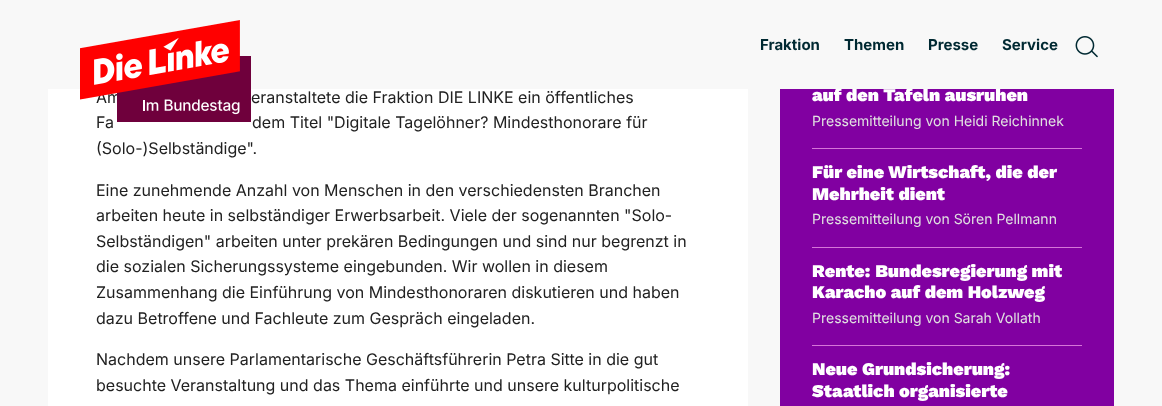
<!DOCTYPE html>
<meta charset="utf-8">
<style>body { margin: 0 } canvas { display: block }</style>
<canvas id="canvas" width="1162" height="406"></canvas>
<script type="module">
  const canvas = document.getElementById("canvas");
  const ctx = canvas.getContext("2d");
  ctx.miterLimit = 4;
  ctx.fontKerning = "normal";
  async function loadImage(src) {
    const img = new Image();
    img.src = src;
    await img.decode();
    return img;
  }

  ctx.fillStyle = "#f8f8f8";
  ctx.fillRect(0, 0, 1162, 406);
  ctx.fillStyle = "#8100a1";
  ctx.fillRect(780, 89, 334, 317);
  ctx.font = "900 18px Work Sans";
  ctx.fillStyle = "#ffffff";
  ctx.fillText("auf den Tafeln ausruhen", 812, 101);
  ctx.fillStyle = "#f8f8f8";
  ctx.fillRect(837, 88, 163, 1);
  ctx.fillStyle = "#ffffff";
  ctx.fillRect(48, 89, 700, 317);
  ctx.font = "16px Inter";
  ctx.fillStyle = "#212121";
  ctx.fillText("Am", 96, 103);
  ctx.fillText("Fa", 96, 128);
  ctx.drawImage(await loadImage("img1.png"), 80, 20, 171, 102);
  ctx.font = "bold 15px Inter";
  ctx.fillStyle = "#002932";
  ctx.fillText("Fraktion", 760, 50);
  ctx.fillText("Themen", 844, 50);
  ctx.fillText("Presse", 928, 50);
  ctx.fillText("Service", 1002, 50);
  ctx.drawImage(await loadImage("img2.png"), 1075, 36, 23, 22);
  ctx.font = "16px Inter";
  ctx.fillStyle = "#212121";
  ctx.fillText("eranstaltete die Fraktion DIE LINKE ein öffentliches", 251, 103);
  ctx.fillText("dem Titel \"Digitale Tagelöhner? Mindesthonorare für", 252, 128);
  ctx.fillText("(Solo-)Selbständige\".", 96, 154);
  ctx.fillText("Eine zunehmende Anzahl von Menschen in den verschiedensten Branchen", 96, 196);
  ctx.fillText("arbeiten heute in selbständiger Erwerbsarbeit. Viele der sogenannten \"Solo-", 96, 221);
  ctx.fillText("Selbständigen\" arbeiten unter prekären Bedingungen und sind nur begrenzt in", 96, 247);
  ctx.fillText("die sozialen Sicherungssysteme eingebunden. Wir wollen in diesem", 96, 272);
  ctx.fillText("Zusammenhang die Einführung von Mindesthonoraren diskutieren und haben", 96, 298);
  ctx.fillText("dazu Betroffene und Fachleute zum Gespräch eingeladen.", 96, 324);
  ctx.fillText("Nachdem unsere Parlamentarische Geschäftsführerin Petra Sitte in die gut", 96, 365);
  ctx.fillText("besuchte Veranstaltung und das Thema einführte und unsere kulturpolitische", 96, 391);
  ctx.fillStyle = "#d675d8";
  ctx.fillRect(812, 148, 270, 1);
  ctx.font = "14px Inter";
  ctx.fillStyle = "#e1e1e1";
  ctx.fillText("Pressemitteilung von Heidi Reichinnek", 812, 126);
  ctx.fillStyle = "#d675d8";
  ctx.fillRect(812, 247, 270, 1);
  ctx.font = "900 18px Work Sans";
  ctx.fillStyle = "#ffffff";
  ctx.fillText("Für eine Wirtschaft, die der", 812, 178);
  ctx.fillText("Mehrheit dient", 812, 200);
  ctx.font = "14px Inter";
  ctx.fillStyle = "#e1e1e1";
  ctx.fillText("Pressemitteilung von Sören Pellmann", 812, 224);
  ctx.fillStyle = "#d675d8";
  ctx.fillRect(812, 345, 270, 1);
  ctx.font = "900 18px Work Sans";
  ctx.fillStyle = "#ffffff";
  ctx.fillText("Rente: Bundesregierung mit", 812, 277);
  ctx.fillText("Karacho auf dem Holzweg", 812, 298);
  ctx.font = "14px Inter";
  ctx.fillStyle = "#e1e1e1";
  ctx.fillText("Pressemitteilung von Sarah Vollath", 812, 323);
  ctx.font = "900 18px Work Sans";
  ctx.fillStyle = "#ffffff";
  ctx.fillText("Neue Grundsicherung:", 812, 375);
  ctx.fillText("Staatlich organisierte", 812, 397);
</script>
